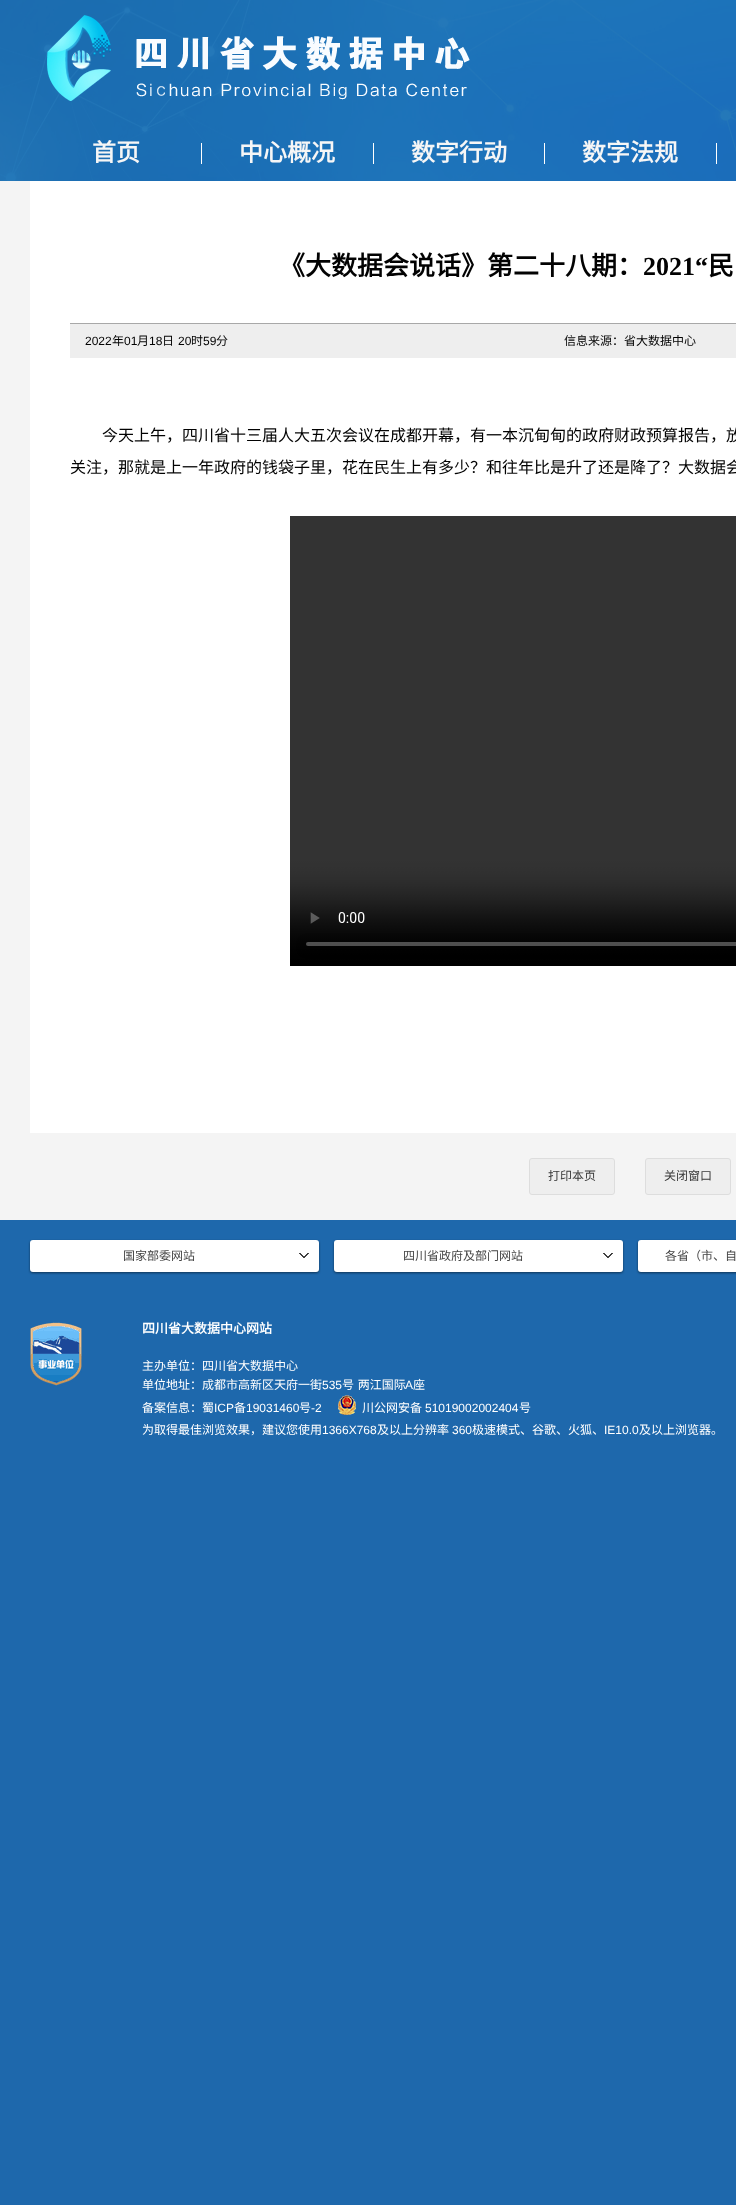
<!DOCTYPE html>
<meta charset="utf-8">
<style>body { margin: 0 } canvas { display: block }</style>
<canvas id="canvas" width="736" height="2205"></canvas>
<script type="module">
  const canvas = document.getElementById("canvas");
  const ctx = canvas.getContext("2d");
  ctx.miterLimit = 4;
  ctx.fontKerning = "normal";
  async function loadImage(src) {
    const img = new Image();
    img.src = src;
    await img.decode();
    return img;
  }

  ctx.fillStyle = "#1e68ac";
  ctx.fillRect(0, 0, 736, 2205);
  ctx.drawImage(await loadImage("img1.png"), 0, 0, 736, 181);
  ctx.drawImage(await loadImage("img2.png"), 47, 15, 423, 86);
  ctx.font = "bold 24px Noto Sans CJK SC";
  ctx.fillStyle = "#f6f6f6";
  ctx.fillText("首页", 92, 161);
  ctx.fillStyle = "#ffffff";
  ctx.fillRect(201, 143, 1, 21);
  ctx.fillStyle = "#f6f6f6";
  ctx.fillText("中心概况", 239, 161);
  ctx.fillStyle = "#ffffff";
  ctx.fillRect(373, 143, 1, 21);
  ctx.fillStyle = "#f6f6f6";
  ctx.fillText("数字行动", 411, 161);
  ctx.fillStyle = "#ffffff";
  ctx.fillRect(544, 143, 1, 21);
  ctx.fillStyle = "#f6f6f6";
  ctx.fillText("数字法规", 582, 161);
  ctx.fillStyle = "#ffffff";
  ctx.fillRect(716, 143, 1, 21);
  ctx.fillStyle = "#f4f4f4";
  ctx.fillRect(0, 181, 736, 1039);
  ctx.fillStyle = "#ffffff";
  ctx.fillRect(30, 181, 706, 952);
  ctx.font = "bold 26px Noto Sans CJK SC";
  ctx.fillStyle = "#020202";
  ctx.fillText("《大数据会说话》第二十八期：", 279, 275);
  ctx.font = "bold 26px Liberation Serif";
  ctx.fillText("2021“", 643, 275);
  ctx.font = "bold 26px Noto Sans CJK SC";
  ctx.fillText("民", 708, 275);
  ctx.fillStyle = "#eeeeee";
  ctx.fillRect(70, 324, 666, 34);
  ctx.fillStyle = "#a8a8a8";
  ctx.fillRect(70, 323, 666, 1);
  ctx.font = "12px Liberation Sans";
  ctx.fillStyle = "#020202";
  ctx.fillText("2022", 85, 345);
  ctx.font = "12px Noto Sans CJK SC";
  ctx.fillText("年", 112, 345);
  ctx.font = "12px Liberation Sans";
  ctx.fillText("01", 124, 345);
  ctx.font = "12px Noto Sans CJK SC";
  ctx.fillText("月", 137, 345);
  ctx.font = "12px Liberation Sans";
  ctx.fillText("18", 149, 345);
  ctx.font = "12px Noto Sans CJK SC";
  ctx.fillText("日", 162, 345);
  ctx.font = "12px Liberation Sans";
  ctx.fillText("20", 178, 345);
  ctx.font = "12px Noto Sans CJK SC";
  ctx.fillText("时", 191, 345);
  ctx.font = "12px Liberation Sans";
  ctx.fillText("59", 203, 345);
  ctx.font = "12px Noto Sans CJK SC";
  ctx.fillText("分", 216, 345);
  ctx.fillText("信息来源：省大数据中心", 564, 345);
  ctx.font = "16px Noto Sans CJK SC";
  ctx.fillText("今天上午，四川省十三届人大五次会议在成都开幕，有一本沉甸甸的政府财政预算报告，放", 102, 441);
  ctx.fillText("关注，那就是上一年政府的钱袋子里，花在民生上有多少？和往年比是升了还是降了？大数据会", 70, 473);
  ctx.drawImage(await loadImage("img3.png"), 290, 516, 446, 450);
  ctx.fillStyle = "#eeeeee";
  ctx.beginPath();
  ctx.roundRect(529.5, 1158.5, 85, 36, 2.5);
  ctx.fill();
  ctx.strokeStyle = "#dddddd";
  ctx.stroke();
  ctx.font = "12px Noto Sans CJK SC";
  ctx.fillStyle = "#393939";
  ctx.fillText("打印本页", 548, 1180);
  ctx.fillStyle = "#eeeeee";
  ctx.beginPath();
  ctx.roundRect(645.5, 1158.5, 85, 36, 2.5);
  ctx.fill();
  ctx.stroke();
  ctx.fillStyle = "#393939";
  ctx.fillText("关闭窗口", 664, 1180);
  ctx.fillStyle = "rgba(0, 0, 0, 0.5)";
  ctx.filter = "blur(1px)";
  ctx.beginPath();
  ctx.roundRect(30, 1241, 289, 32, 3);
  ctx.fill();
  ctx.filter = "none";
  ctx.fillStyle = "#ffffff";
  ctx.beginPath();
  ctx.roundRect(30, 1240, 289, 32, 3);
  ctx.fill();
  ctx.fillStyle = "#454545";
  ctx.fillText("国家部委网站", 123, 1260);
  ctx.drawImage(await loadImage("img4.png"), 299, 1253, 10, 5);
  ctx.fillStyle = "rgba(0, 0, 0, 0.5)";
  ctx.filter = "blur(1px)";
  ctx.beginPath();
  ctx.roundRect(334, 1241, 289, 32, 3);
  ctx.fill();
  ctx.filter = "none";
  ctx.fillStyle = "#ffffff";
  ctx.beginPath();
  ctx.roundRect(334, 1240, 289, 32, 3);
  ctx.fill();
  ctx.fillStyle = "#454545";
  ctx.fillText("四川省政府及部门网站", 403, 1260);
  ctx.drawImage(await loadImage("img4.png"), 603, 1253, 10, 5);
  ctx.fillStyle = "rgba(0, 0, 0, 0.5)";
  ctx.filter = "blur(1px)";
  ctx.beginPath();
  ctx.roundRect(638, 1241, 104, 32, 3);
  ctx.fill();
  ctx.filter = "none";
  ctx.fillStyle = "#ffffff";
  ctx.beginPath();
  ctx.roundRect(638, 1240, 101, 32, 3);
  ctx.fill();
  ctx.fillStyle = "#454545";
  ctx.fillText("各省（市、自", 665, 1260);
  ctx.drawImage(await loadImage("img5.png"), 30, 1322, 52, 64);
  ctx.font = "bold 13px Noto Sans CJK SC";
  ctx.fillStyle = "#ffffff";
  ctx.fillText("四川省大数据中心网站", 142, 1333);
  ctx.font = "12px Noto Sans CJK SC";
  ctx.fillText("主办单位：四川省大数据中心", 142, 1370);
  ctx.fillText("单位地址：成都市高新区天府一街", 142, 1389);
  ctx.font = "12px Liberation Sans";
  ctx.fillText("535", 322, 1389);
  ctx.wordSpacing = "1px";
  ctx.font = "12px Noto Sans CJK SC";
  ctx.fillText("号 两江国际", 342, 1389);
  ctx.wordSpacing = "0px";
  ctx.font = "12px Liberation Sans";
  ctx.fillText("A", 405, 1389);
  ctx.font = "12px Noto Sans CJK SC";
  ctx.fillText("座", 413, 1389);
  ctx.fillText("备案信息：蜀", 142, 1412);
  ctx.font = "12px Liberation Sans";
  ctx.fillText("ICP", 214, 1412);
  ctx.font = "12px Noto Sans CJK SC";
  ctx.fillText("备", 234, 1412);
  ctx.font = "12px Liberation Sans";
  ctx.fillText("19031460", 246, 1412);
  ctx.font = "12px Noto Sans CJK SC";
  ctx.fillText("号", 299, 1412);
  ctx.font = "12px Liberation Sans";
  ctx.fillText("-2", 311, 1412);
  ctx.drawImage(await loadImage("img6.png"), 338, 1395, 18, 20);
  ctx.font = "12px Noto Sans CJK SC";
  ctx.fillText("川公网安备", 362, 1412);
  ctx.font = "12px Liberation Sans";
  ctx.fillText("51019002002404", 425, 1412);
  ctx.font = "12px Noto Sans CJK SC";
  ctx.fillText("号", 519, 1412);
  ctx.fillText("为取得最佳浏览效果，建议您使用", 142, 1434);
  ctx.font = "12px Liberation Sans";
  ctx.fillText("1366X768", 322, 1434);
  ctx.font = "12px Noto Sans CJK SC";
  ctx.fillText("及以上分辨率", 377, 1434);
  ctx.font = "12px Liberation Sans";
  ctx.fillText("360", 452, 1434);
  ctx.font = "12px Noto Sans CJK SC";
  ctx.fillText("极速模式、谷歌、火狐、", 472, 1434);
  ctx.font = "12px Liberation Sans";
  ctx.fillText("IE10.0", 604, 1434);
  ctx.font = "12px Noto Sans CJK SC";
  ctx.fillText("及以上浏览器。", 639, 1434);
</script>
